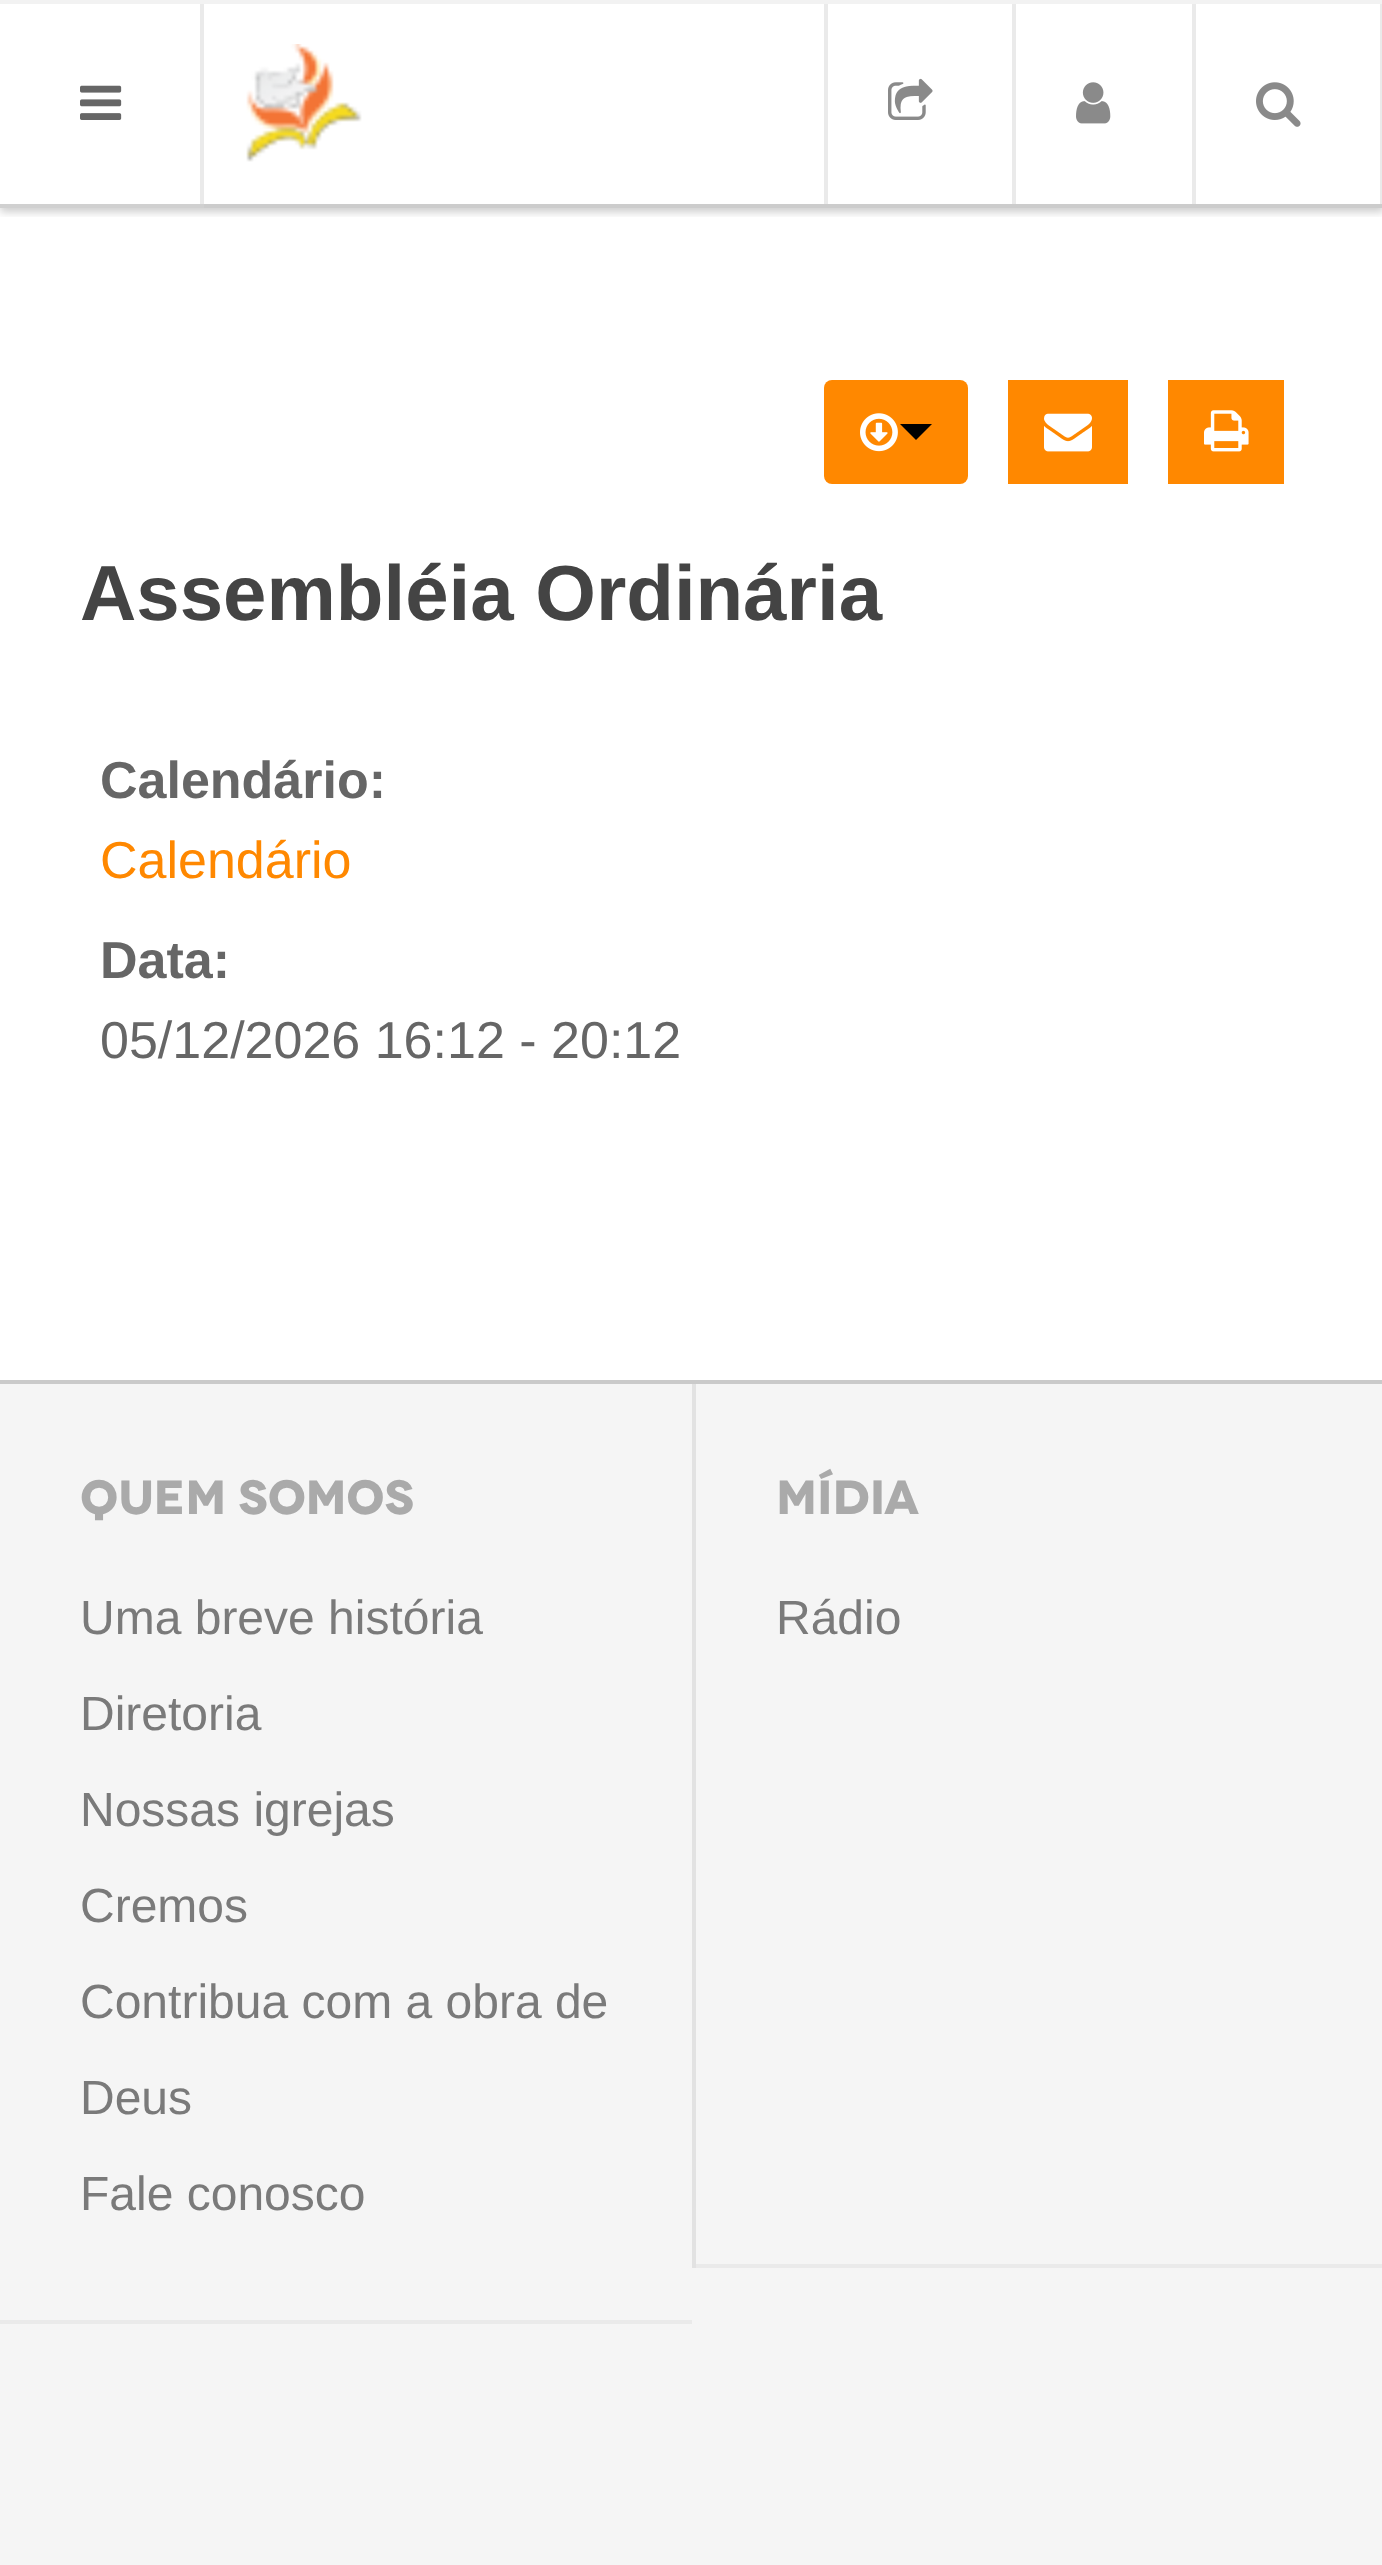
<!DOCTYPE html>
<meta charset="utf-8">
<style>body { margin: 0 } canvas { display: block }</style>
<canvas id="canvas" width="1382" height="2565"></canvas>
<script type="module">
  const canvas = document.getElementById("canvas");
  const ctx = canvas.getContext("2d");
  ctx.miterLimit = 4;
  ctx.fontKerning = "normal";
  async function loadImage(src) {
    const img = new Image();
    img.src = src;
    await img.decode();
    return img;
  }

  ctx.fillStyle = "#ffffff";
  ctx.fillRect(0, 0, 1382, 2565);
  ctx.save();
  ctx.beginPath();
  ctx.rect(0, 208, 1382, 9);
  ctx.clip();
  ctx.fillStyle = "rgba(0, 0, 0, 0.2)";
  ctx.filter = "blur(4px)";
  ctx.beginPath();
  ctx.rect(0, 4, 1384, 208);
  ctx.fill();
  ctx.filter = "none";
  ctx.restore();
  ctx.fillStyle = "#f2f2f2";
  ctx.fillRect(0, 0, 1382, 4);
  ctx.fillStyle = "#cccccc";
  ctx.fillRect(204, 204, 1178, 4);
  ctx.fillStyle = "#d0d0d0";
  ctx.fillRect(0, 204, 204, 4);
  ctx.fillStyle = "#eaeaea";
  ctx.fillRect(200, 4, 4, 200);
  ctx.drawImage(await loadImage("img1.png"), 80, 85, 42, 35);
  ctx.drawImage(await loadImage("img2.png"), 246, 44, 116, 118);
  ctx.fillRect(824, 4, 4, 200);
  ctx.fillRect(1012, 4, 4, 200);
  ctx.drawImage(await loadImage("img3.png"), 888, 78, 45, 42);
  ctx.fillRect(1192, 4, 4, 200);
  ctx.drawImage(await loadImage("img4.png"), 1076, 82, 35, 42);
  ctx.fillRect(1380, 4, 2, 200);
  ctx.drawImage(await loadImage("img5.png"), 1256, 82, 45, 45);
  ctx.fillStyle = "#ff8800";
  ctx.beginPath();
  ctx.roundRect(824, 380, 144, 104, 8);
  ctx.fill();
  ctx.drawImage(await loadImage("img6.png"), 860, 413, 38, 39);
  ctx.fillStyle = "#000000";
  ctx.beginPath();
  ctx.moveTo(900, 424);
  ctx.lineTo(932, 424);
  ctx.lineTo(916, 440);
  ctx.closePath();
  ctx.fill();
  ctx.fillStyle = "#ff8800";
  ctx.fillRect(1008, 380, 120, 104);
  ctx.drawImage(await loadImage("img7.png"), 1044, 413, 48, 39);
  ctx.fillRect(1168, 380, 116, 104);
  ctx.drawImage(await loadImage("img8.png"), 1204, 410, 45, 42);
  ctx.font = "bold 78px Liberation Sans";
  ctx.fillStyle = "#444444";
  ctx.fillText("Assembléia Ordinária", 80, 620);
  ctx.font = "bold 52px Liberation Sans";
  ctx.fillStyle = "#666666";
  ctx.fillText("Calendário:", 100, 798);
  ctx.font = "52px Liberation Sans";
  ctx.fillStyle = "#ff8800";
  ctx.fillText("Calendário", 100, 878);
  ctx.font = "bold 52px Liberation Sans";
  ctx.fillStyle = "#666666";
  ctx.fillText("Data:", 100, 978);
  ctx.font = "52px Liberation Sans";
  ctx.fillText("05/12/2026 16:12 - 20:12", 100, 1058);
  ctx.fillStyle = "#f5f5f5";
  ctx.fillRect(0, 1384, 1382, 1181);
  ctx.fillStyle = "#cacaca";
  ctx.fillRect(0, 1380, 1382, 4);
  ctx.fillStyle = "#eaeaea";
  ctx.fillRect(0, 2320, 692, 4);
  ctx.font = "bold 48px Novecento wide";
  ctx.fillStyle = "#aaaaaa";
  ctx.fillText("QUEM SOMOS", 80, 1514);
  ctx.font = "48px Liberation Sans";
  ctx.fillStyle = "#7a7a7a";
  ctx.fillText("Uma breve história", 80, 1634);
  ctx.fillText("Diretoria", 80, 1730);
  ctx.fillText("Nossas igrejas", 80, 1826);
  ctx.fillText("Cremos", 80, 1922);
  ctx.fillText("Contribua com a obra de", 80, 2018);
  ctx.fillText("Deus", 80, 2114);
  ctx.fillText("Fale conosco", 80, 2210);
  ctx.fillStyle = "#eaeaea";
  ctx.fillRect(692, 2264, 690, 4);
  ctx.fillStyle = "#e2e2e2";
  ctx.fillRect(692, 1384, 4, 884);
  ctx.font = "bold 48px Novecento wide";
  ctx.fillStyle = "#aaaaaa";
  ctx.fillText("MÍDIA", 776, 1514);
  ctx.font = "48px Liberation Sans";
  ctx.fillStyle = "#7a7a7a";
  ctx.fillText("Rádio", 776, 1634);
</script>
